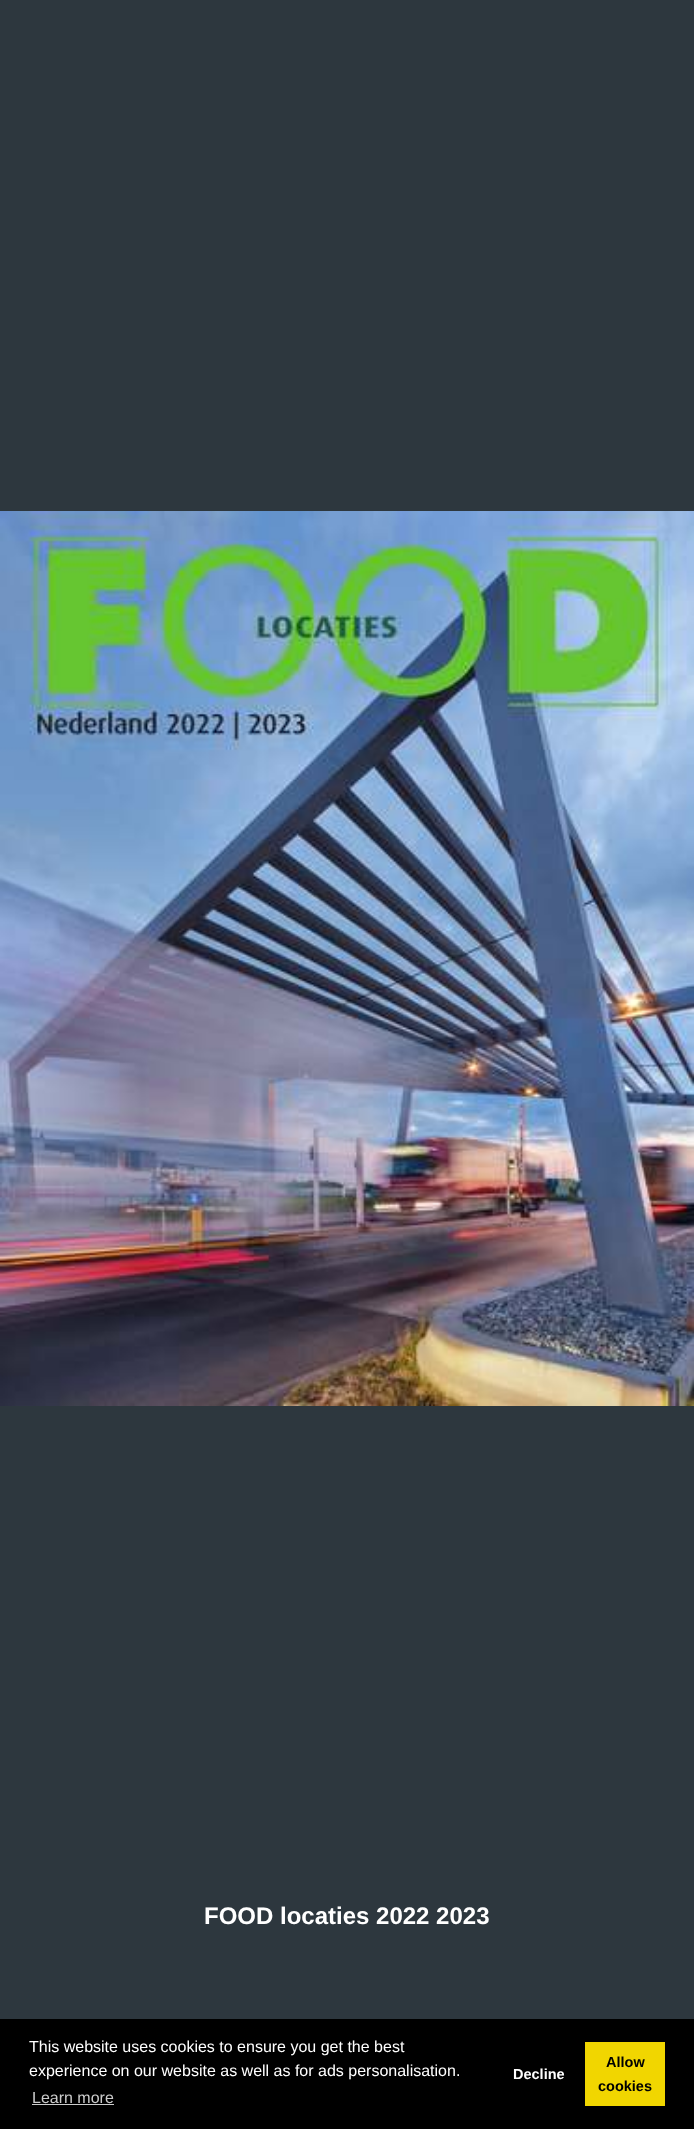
<!DOCTYPE html>
<meta charset="utf-8">
<style>body { margin: 0 } canvas { display: block }</style>
<canvas id="canvas" width="694" height="2129"></canvas>
<script type="module">
  const canvas = document.getElementById("canvas");
  const ctx = canvas.getContext("2d");
  ctx.miterLimit = 4;
  ctx.fontKerning = "normal";
  async function loadImage(src) {
    const img = new Image();
    img.src = src;
    await img.decode();
    return img;
  }

  ctx.fillStyle = "#2d373e";
  ctx.fillRect(0, 0, 694, 2129);
  ctx.drawImage(await loadImage("img1.png"), 0, 511, 694, 895);
  ctx.font = "bold 24px Liberation Sans";
  ctx.fillStyle = "#ffffff";
  ctx.fillText("FOOD locaties 2022 2023", 204, 1924);
  ctx.fillStyle = "#000000";
  ctx.fillRect(0, 2019, 694, 110);
  ctx.font = "16px Liberation Sans";
  ctx.fillStyle = "#ffffff";
  ctx.fillText("This website uses cookies to ensure you get the best", 29, 2052);
  ctx.fillText("experience on our website as well as for ads personalisation.", 29, 2076);
  ctx.fillStyle = "#cccccc";
  ctx.fillText("Learn more", 32, 2103);
  ctx.fillRect(32, 2104, 82, 1);
  ctx.font = "bold 14.5px Liberation Sans";
  ctx.fillStyle = "#ffffff";
  ctx.fillText("Decline", 513, 2079);
  ctx.fillStyle = "#f1d600";
  ctx.fillRect(585, 2042, 80, 64);
  ctx.fillStyle = "#000000";
  ctx.fillText("Allow", 606, 2067);
  ctx.fillText("cookies", 598, 2091);
</script>
